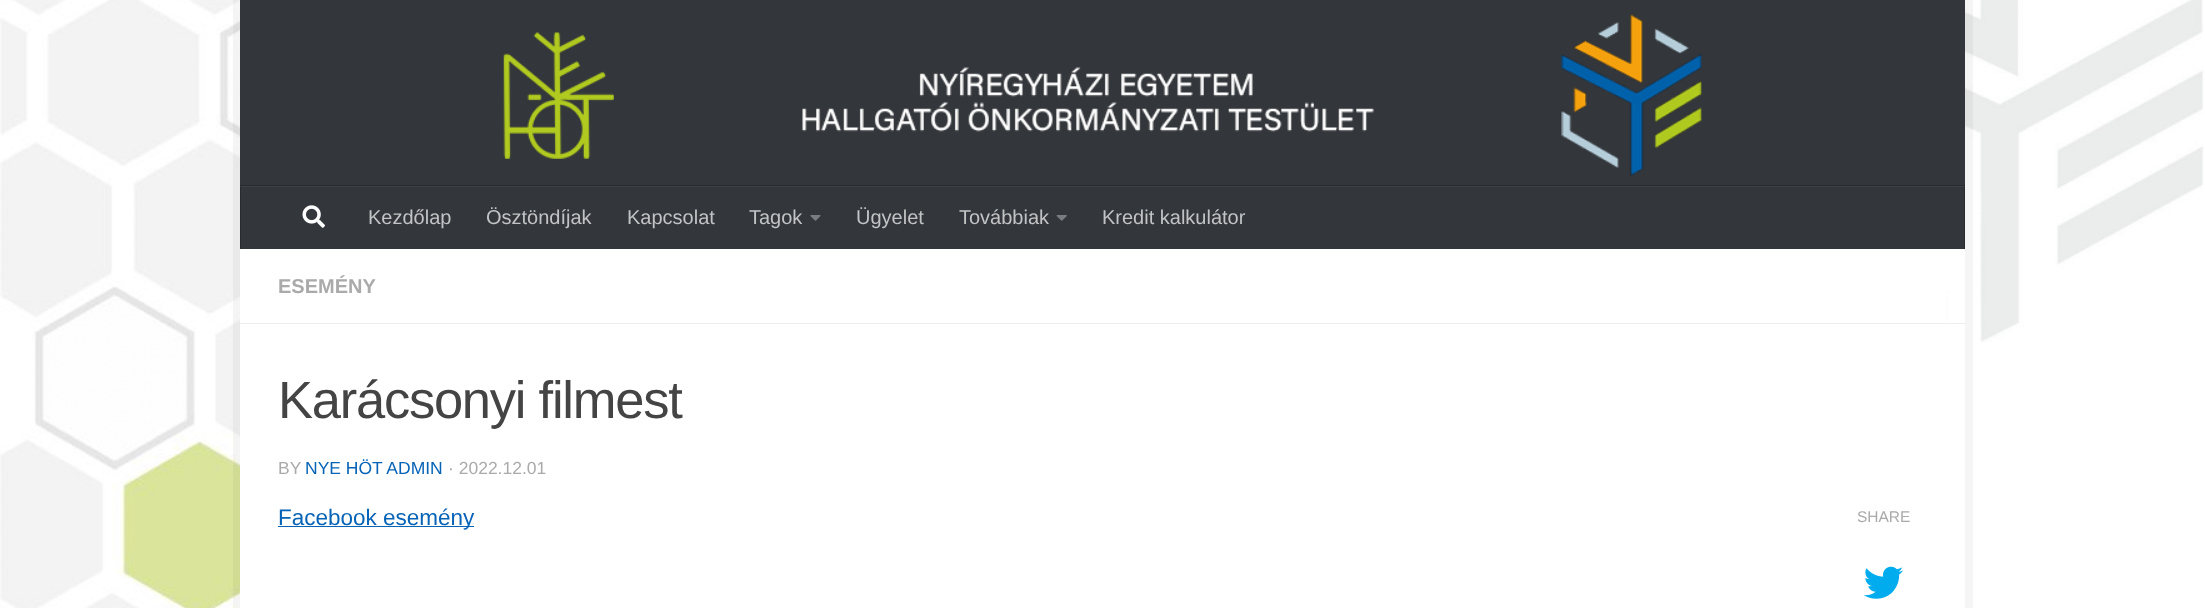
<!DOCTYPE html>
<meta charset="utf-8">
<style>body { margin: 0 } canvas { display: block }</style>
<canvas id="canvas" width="2205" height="608"></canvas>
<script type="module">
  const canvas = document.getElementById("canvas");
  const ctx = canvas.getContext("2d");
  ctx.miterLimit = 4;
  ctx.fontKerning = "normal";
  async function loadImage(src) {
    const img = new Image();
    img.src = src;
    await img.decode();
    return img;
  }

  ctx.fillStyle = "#ffffff";
  ctx.fillRect(0, 0, 2205, 608);
  ctx.drawImage(await loadImage("img1.png"), 0, 0, 2205, 608);
  ctx.fillStyle = "rgba(0, 0, 0, 0.04)";
  ctx.beginPath();
  ctx.moveTo(233, 0);
  ctx.lineTo(233, 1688);
  ctx.lineTo(1958, 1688);
  ctx.lineTo(240, 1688);
  ctx.lineTo(240, 0);
  ctx.closePath();
  ctx.fill();
  ctx.beginPath();
  ctx.moveTo(248, 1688);
  ctx.lineTo(1973, 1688);
  ctx.lineTo(1973, 0);
  ctx.lineTo(1965, 0);
  ctx.lineTo(1965, 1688);
  ctx.closePath();
  ctx.fill();
  ctx.fillStyle = "#33363b";
  ctx.fillRect(240, 0, 1725, 249);
  ctx.drawImage(await loadImage("img2.png"), 503, 14, 1199, 162);
  ctx.fillStyle = "#292b2f";
  ctx.fillRect(240, 185, 1725, 1);
  ctx.fillRect(1964, 186, 1, 63);
  ctx.fillRect(240, 186, 1, 63);
  ctx.fillStyle = "rgba(255, 255, 255, 0.05)";
  ctx.fillRect(240, 186, 1725, 1);
  ctx.drawImage(await loadImage("img3.png"), 302, 205, 23, 23);
  ctx.font = "20px Liberation Sans";
  ctx.fillStyle = "#c2c3c4";
  ctx.fillText("Kezdőlap", 368, 224);
  ctx.fillText("Ösztöndíjak", 486, 224);
  ctx.fillText("Kapcsolat", 627, 224);
  ctx.fillText("Tagok", 749, 224);
  ctx.drawImage(await loadImage("img4.png"), 810, 215, 11, 6);
  ctx.fillText("Ügyelet", 856, 224);
  ctx.fillText("Továbbiak", 959, 224);
  ctx.drawImage(await loadImage("img5.png"), 1056, 215, 11, 6);
  ctx.fillText("Kredit kalkulátor", 1102, 224);
  ctx.fillStyle = "#ffffff";
  ctx.fillRect(240, 249, 1705, 359);
  ctx.fillStyle = "#eeeeee";
  ctx.fillRect(240, 323, 1725, 1);
  ctx.font = "bold 20px Liberation Sans";
  ctx.fillStyle = "#aaaaaa";
  ctx.fillText("ESEMÉNY", 278, 293);
  ctx.letterSpacing = "-1.25px";
  ctx.font = "52.5px Liberation Sans";
  ctx.fillStyle = "#444444";
  ctx.fillText("Karácsonyi filmest", 278, 418);
  ctx.letterSpacing = "0px";
  ctx.font = "17.5px Liberation Sans";
  ctx.fillStyle = "#aaaaaa";
  ctx.fillText("BY", 278, 474);
  ctx.fillStyle = "#0663b6";
  ctx.fillText("NYE HÖT ADMIN", 305, 474);
  ctx.fillStyle = "#aaaaaa";
  ctx.fillText("· 2022.12.01", 448, 474);
  ctx.fillStyle = "#0663b6";
  ctx.fillRect(278, 526, 196, 1);
  ctx.font = "22.5px Liberation Sans";
  ctx.fillText("Facebook esemény", 278, 525);
  ctx.font = "15.5px Liberation Sans";
  ctx.fillStyle = "#aaaaaa";
  ctx.fillText("SHARE", 1857, 522);
  ctx.drawImage(await loadImage("img6.png"), 1864, 566, 39, 33);
</script>
